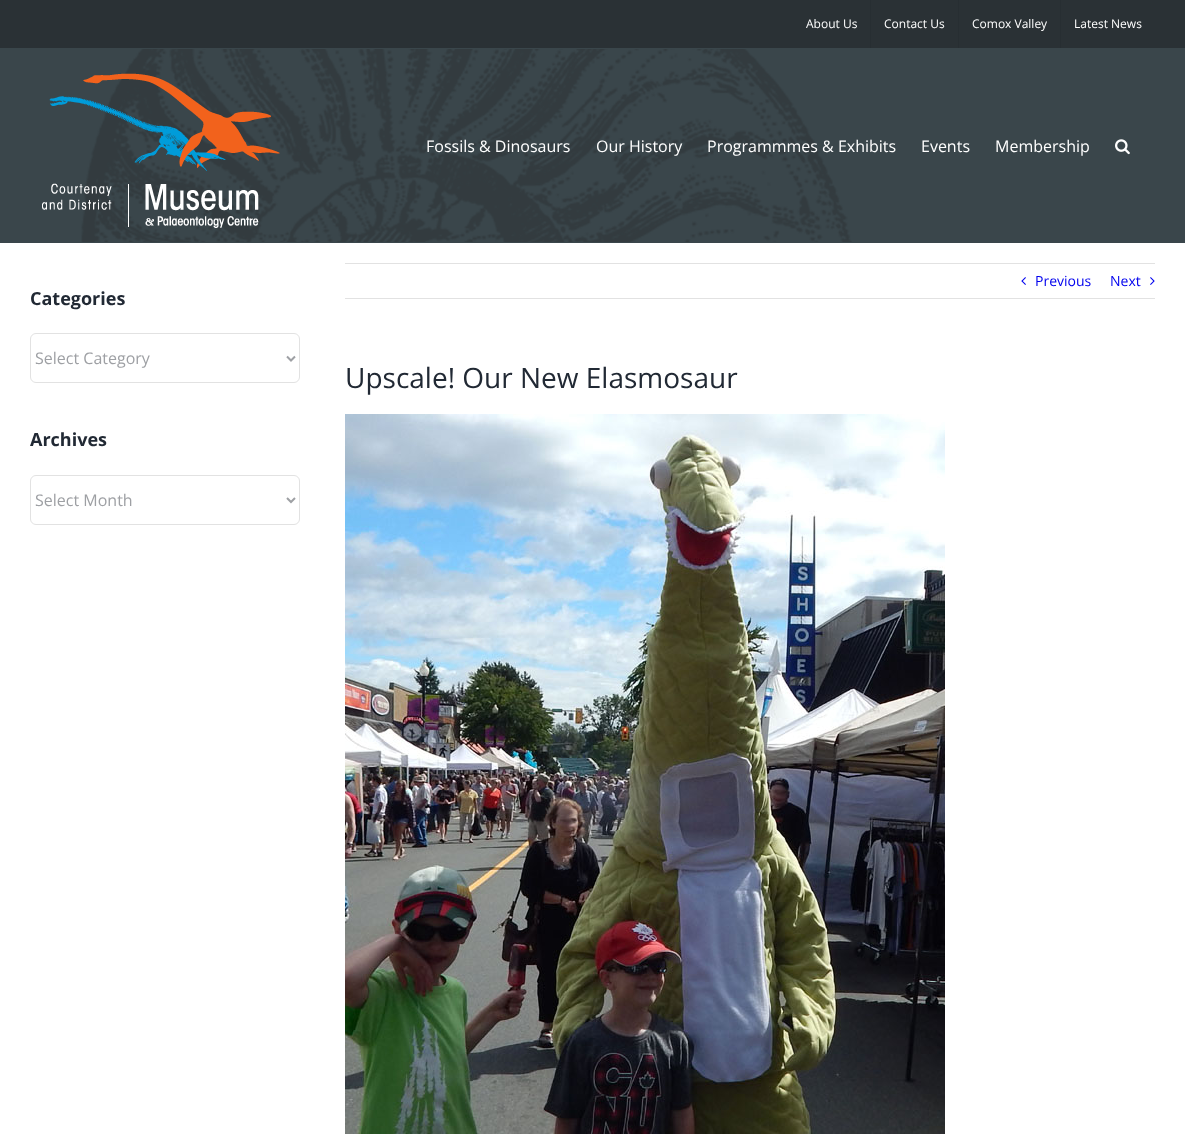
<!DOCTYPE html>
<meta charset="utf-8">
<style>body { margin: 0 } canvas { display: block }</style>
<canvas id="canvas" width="1185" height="1134"></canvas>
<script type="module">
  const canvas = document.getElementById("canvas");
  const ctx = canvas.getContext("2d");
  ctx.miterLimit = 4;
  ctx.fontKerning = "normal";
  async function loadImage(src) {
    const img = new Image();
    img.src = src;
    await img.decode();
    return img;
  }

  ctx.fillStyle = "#ffffff";
  ctx.fillRect(0, 0, 1185, 1134);
  ctx.fillStyle = "#2a3135";
  ctx.fillRect(0, 0, 1185, 48);
  ctx.fillStyle = "#3a464b";
  ctx.fillRect(0, 48, 1185, 195);
  ctx.font = "12px Open Sans";
  ctx.fillStyle = "#ffffff";
  ctx.fillText("About Us", 806, 28);
  ctx.fillStyle = "#272e32";
  ctx.fillRect(870, 0, 1, 48);
  ctx.fillStyle = "#ffffff";
  ctx.fillText("Contact Us", 884, 28);
  ctx.fillStyle = "#272e32";
  ctx.fillRect(958, 0, 1, 48);
  ctx.fillStyle = "#ffffff";
  ctx.fillText("Comox Valley", 972, 28);
  ctx.fillStyle = "#272e32";
  ctx.fillRect(1060, 0, 1, 48);
  ctx.fillStyle = "#ffffff";
  ctx.fillText("Latest News", 1074, 28);
  ctx.drawImage(await loadImage("img1.png"), 81, 49, 771, 193);
  ctx.drawImage(await loadImage("img2.png"), 42, 73, 238, 155);
  ctx.font = "16px Open Sans";
  ctx.fillText("Fossils & Dinosaurs", 426, 152);
  ctx.fillText("Our History", 596, 152);
  ctx.fillText("Programmmes & Exhibits", 707, 152);
  ctx.fillText("Events", 921, 152);
  ctx.fillText("Membership", 995, 152);
  ctx.drawImage(await loadImage("img3.png"), 1115, 139, 15, 16);
  ctx.font = "bold 18px Open Sans";
  ctx.fillStyle = "#212934";
  ctx.fillText("Categories", 30, 305);
  ctx.beginPath();
  ctx.roundRect(30.5, 333.5, 269, 49, 5.5);
  ctx.strokeStyle = "#e2e2e2";
  ctx.stroke();
  ctx.beginPath();
  ctx.moveTo(287, 356.5);
  ctx.lineTo(291, 360.5);
  ctx.lineTo(295, 356.5);
  ctx.strokeStyle = "#9ea0a4";
  ctx.lineWidth = 2;
  ctx.stroke();
  ctx.font = "16px Open Sans";
  ctx.fillStyle = "#9ea0a4";
  ctx.fillText("Select Category", 35, 364);
  ctx.font = "bold 18px Open Sans";
  ctx.fillStyle = "#212934";
  ctx.fillText("Archives", 30, 446);
  ctx.beginPath();
  ctx.roundRect(30.5, 475.5, 269, 49, 5.5);
  ctx.strokeStyle = "#e2e2e2";
  ctx.lineWidth = 1;
  ctx.stroke();
  ctx.beginPath();
  ctx.moveTo(287, 498);
  ctx.lineTo(291, 502);
  ctx.lineTo(295, 498);
  ctx.strokeStyle = "#9ea0a4";
  ctx.lineWidth = 2;
  ctx.stroke();
  ctx.font = "16px Open Sans";
  ctx.fillStyle = "#9ea0a4";
  ctx.fillText("Select Month", 35, 506);
  ctx.fillStyle = "#e2e2e2";
  ctx.fillRect(345, 263, 810, 1);
  ctx.fillRect(345, 298, 810, 1);
  ctx.drawImage(await loadImage("img4.png"), 1021, 277, 5, 8);
  ctx.font = "14px Open Sans";
  ctx.fillStyle = "#0000ee";
  ctx.fillText("Previous", 1035, 286);
  ctx.fillText("Next", 1110, 286);
  ctx.drawImage(await loadImage("img5.png"), 1150, 277, 5, 8);
  ctx.font = "28px Open Sans";
  ctx.fillStyle = "#212934";
  ctx.fillText("Upscale! Our New Elasmosaur", 345, 388);
  ctx.drawImage(await loadImage("img6.png"), 345, 414, 600, 720);
</script>
